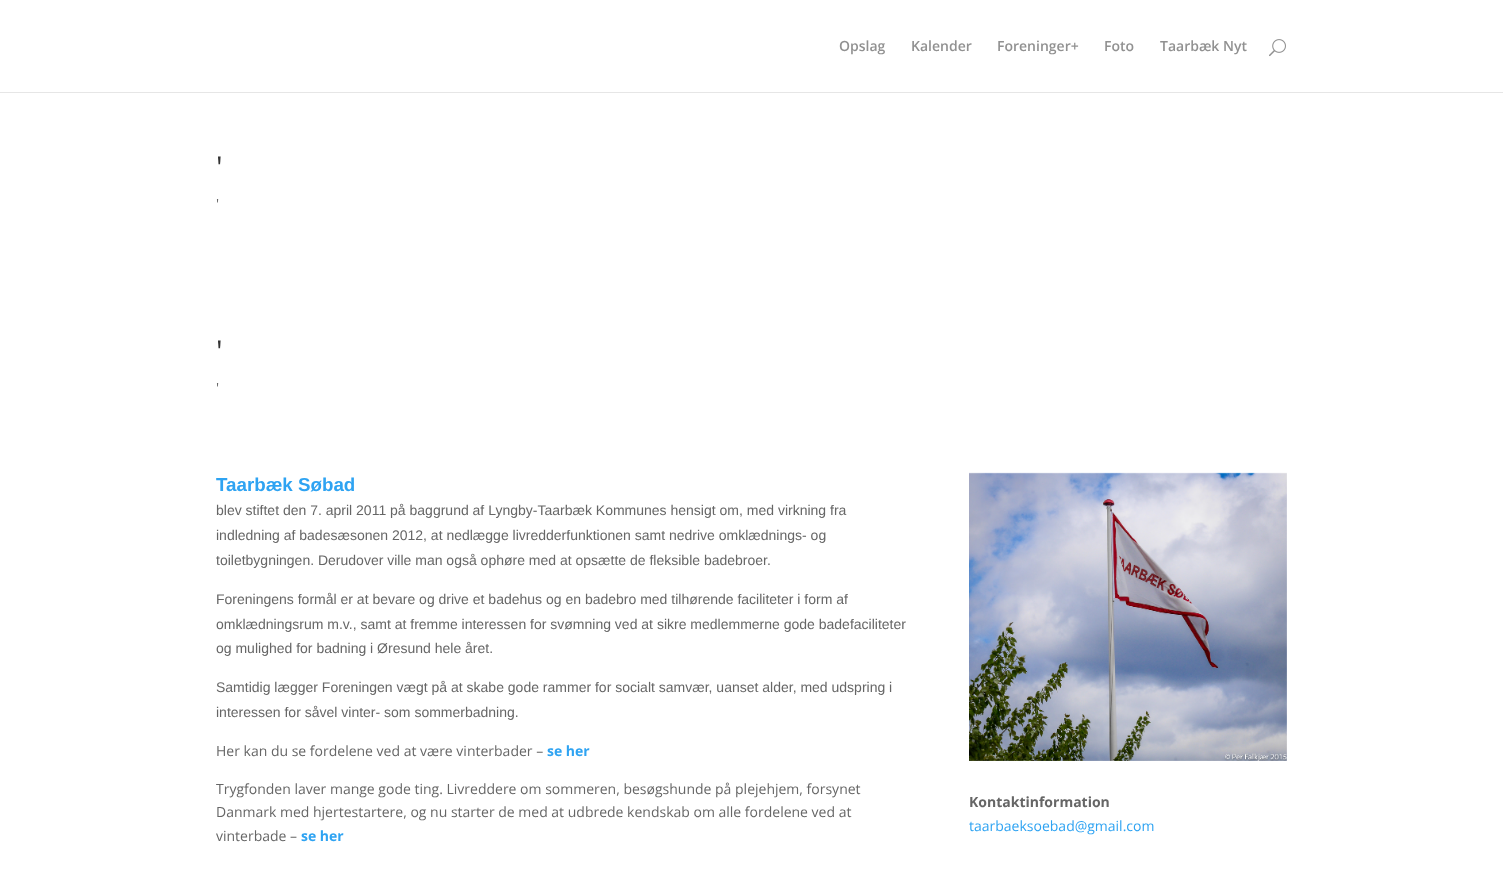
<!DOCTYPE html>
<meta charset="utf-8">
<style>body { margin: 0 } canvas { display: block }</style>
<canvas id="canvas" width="1503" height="876"></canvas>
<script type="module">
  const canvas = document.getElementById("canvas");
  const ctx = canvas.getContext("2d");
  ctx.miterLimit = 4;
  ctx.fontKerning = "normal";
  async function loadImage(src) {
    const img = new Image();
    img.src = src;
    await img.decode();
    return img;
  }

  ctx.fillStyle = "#ffffff";
  ctx.fillRect(0, 0, 1503, 876);
  ctx.fillStyle = "#e6e6e6";
  ctx.fillRect(0, 92, 1503, 1);
  ctx.font = "600 14px Open Sans";
  ctx.fillStyle = "#919191";
  ctx.fillText("Opslag", 839, 51);
  ctx.fillText("Kalender", 911, 51);
  ctx.fillText("Foreninger+", 997, 51);
  ctx.fillText("Foto", 1104, 51);
  ctx.fillText("Taarbæk Nyt", 1160, 51);
  ctx.drawImage(await loadImage("img1.png"), 1269, 39, 17, 18);
  ctx.font = "30px Open Sans";
  ctx.fillStyle = "#333333";
  ctx.fillText("'", 216, 178);
  ctx.font = "14px Open Sans";
  ctx.fillStyle = "#666666";
  ctx.fillText("'", 216, 209);
  ctx.font = "30px Open Sans";
  ctx.fillStyle = "#333333";
  ctx.fillText("'", 216, 362);
  ctx.font = "14px Open Sans";
  ctx.fillStyle = "#666666";
  ctx.fillText("'", 216, 393);
  ctx.font = "bold 18.75px Liberation Sans";
  ctx.fillStyle = "#2ea3f2";
  ctx.fillText("Taarbæk Søbad", 216, 491);
  ctx.font = "14px Liberation Sans";
  ctx.fillStyle = "#666666";
  ctx.fillText("blev stiftet den 7. april 2011 på baggrund af Lyngby-Taarbæk Kommunes hensigt om, med virkning fra", 216, 515);
  ctx.fillText("indledning af badesæsonen 2012, at nedlægge livredderfunktionen samt nedrive omklædnings- og", 216, 540);
  ctx.fillText("toiletbygningen. Derudover ville man også ophøre med at opsætte de fleksible badebroer.", 216, 565);
  ctx.fillText("Foreningens formål er at bevare og drive et badehus og en badebro med tilhørende faciliteter i form af", 216, 604);
  ctx.fillText("omklædningsrum m.v., samt at fremme interessen for svømning ved at sikre medlemmerne gode badefaciliteter", 216, 629);
  ctx.fillText("og mulighed for badning i Øresund hele året.", 216, 653);
  ctx.fillText("Samtidig lægger Foreningen vægt på at skabe gode rammer for socialt samvær, uanset alder, med udspring i", 216, 692);
  ctx.fillText("interessen for såvel vinter- som sommerbadning.", 216, 717);
  ctx.font = "14px Open Sans";
  ctx.fillText("Her kan du se fordelene ved at være vinterbader –", 216, 756);
  ctx.font = "bold 14px Open Sans";
  ctx.fillStyle = "#2ea3f2";
  ctx.fillText("se her", 547, 756);
  ctx.font = "14px Open Sans";
  ctx.fillStyle = "#666666";
  ctx.fillText("Trygfonden laver mange gode ting. Livreddere om sommeren, besøgshunde på plejehjem, forsynet", 216, 794);
  ctx.fillText("Danmark med hjertestartere, og nu starter de med at udbrede kendskab om alle fordelene ved at", 216, 817);
  ctx.fillText("vinterbade –", 216, 841);
  ctx.font = "bold 14px Open Sans";
  ctx.fillStyle = "#2ea3f2";
  ctx.fillText("se her", 301, 841);
  ctx.drawImage(await loadImage("img2.png"), 969, 472, 318, 289);
  ctx.fillStyle = "#666666";
  ctx.fillText("Kontaktinformation", 969, 807);
  ctx.font = "14px Open Sans";
  ctx.fillStyle = "#2ea3f2";
  ctx.fillText("taarbaeksoebad@gmail.com", 969, 831);
</script>
